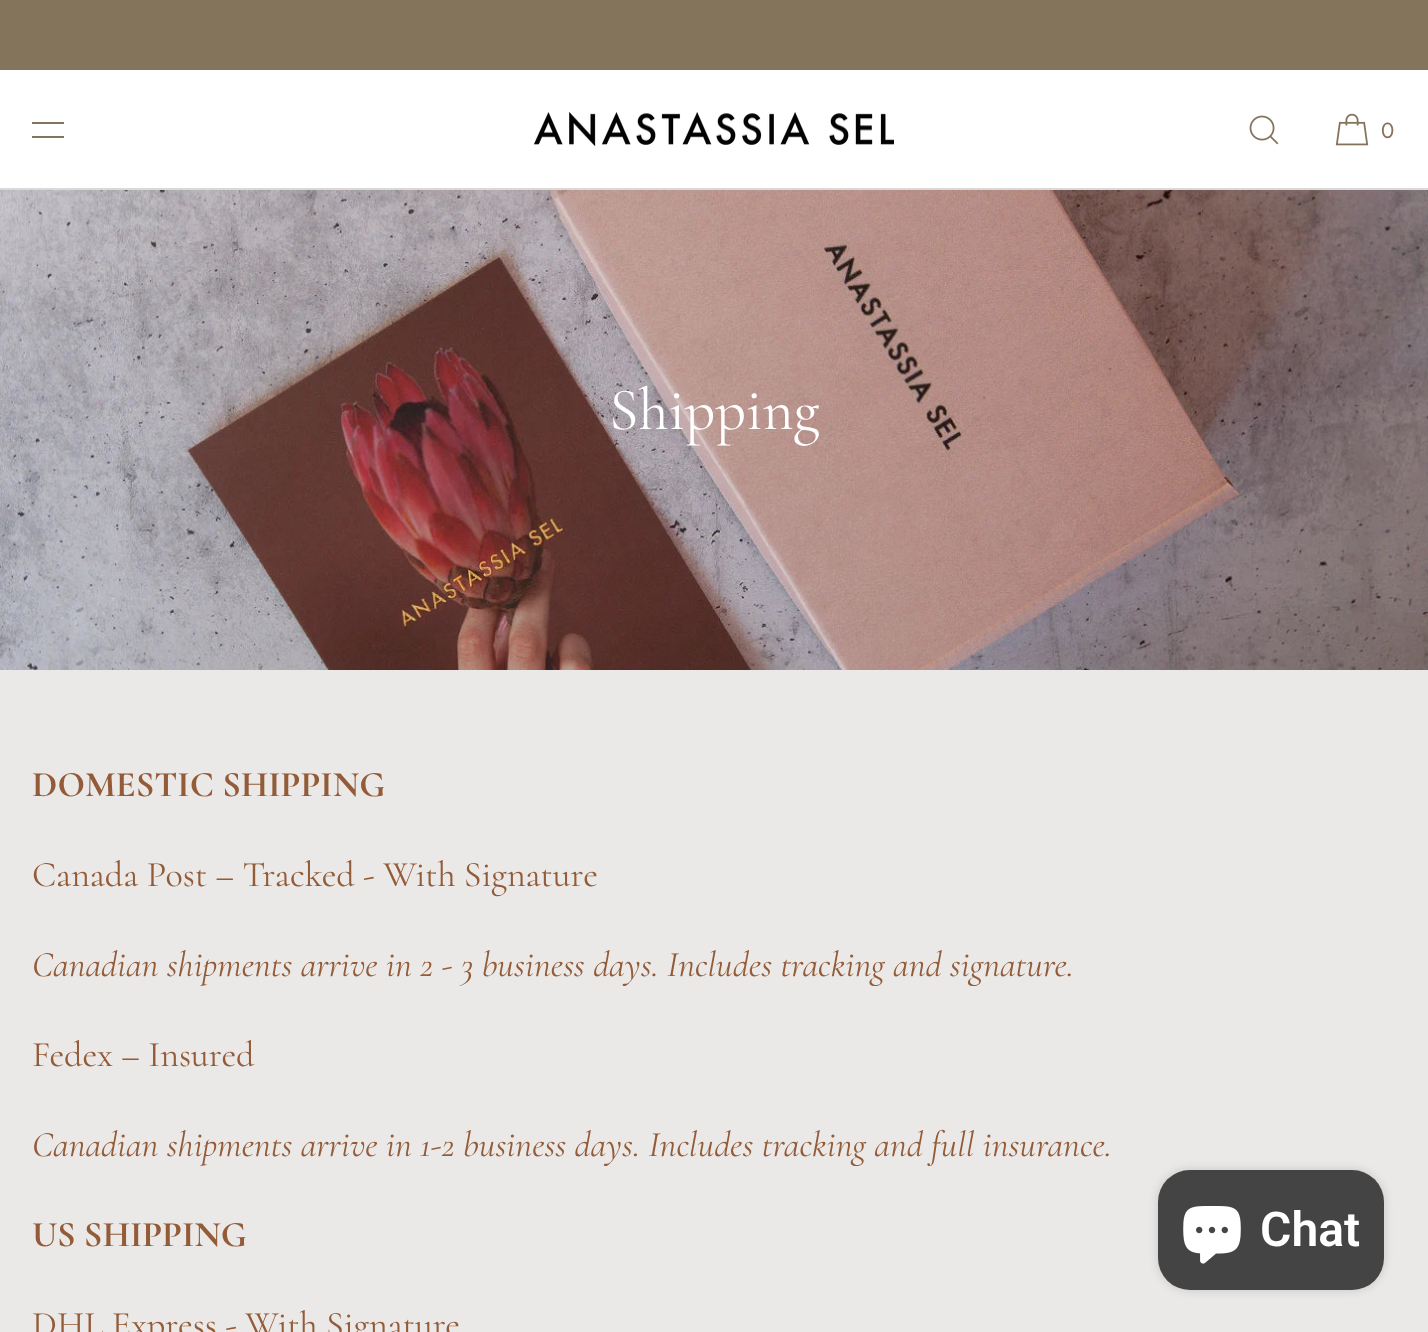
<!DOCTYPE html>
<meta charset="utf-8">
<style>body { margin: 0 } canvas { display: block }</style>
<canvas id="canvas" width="1428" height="1332"></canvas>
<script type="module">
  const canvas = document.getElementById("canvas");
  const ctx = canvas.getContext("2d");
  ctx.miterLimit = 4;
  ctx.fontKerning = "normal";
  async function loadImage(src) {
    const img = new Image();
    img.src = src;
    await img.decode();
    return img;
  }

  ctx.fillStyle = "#eae9e7";
  ctx.fillRect(0, 0, 1428, 1332);
  ctx.fillStyle = "#85745c";
  ctx.fillRect(0, 0, 1428, 70);
  ctx.fillStyle = "#ffffff";
  ctx.fillRect(0, 70, 1428, 118);
  ctx.fillStyle = "#d9d9d9";
  ctx.fillRect(0, 188, 1428, 2);
  ctx.fillStyle = "#85745c";
  ctx.fillRect(32, 122, 32, 2);
  ctx.fillRect(32, 136, 32, 2);
  ctx.drawImage(await loadImage("img1.png"), 534, 112, 360, 34);
  ctx.drawImage(await loadImage("img2.png"), 1249, 115, 30, 30);
  ctx.drawImage(await loadImage("img3.png"), 1335, 113, 34, 33);
  ctx.font = "22px Jost";
  ctx.fillText("0", 1381, 138);
  ctx.drawImage(await loadImage("img4.png"), 0, 190, 1428, 480);
  ctx.font = "60px Cormorant";
  ctx.fillStyle = "#ffffff";
  ctx.fillText("Shipping", 609, 429);
  ctx.font = "bold 36px Cormorant";
  ctx.fillStyle = "#935b38";
  ctx.fillText("DOMESTIC SHIPPING", 32, 796);
  ctx.font = "36px Cormorant";
  ctx.fillText("Canada Post – Tracked - With Signature", 32, 886);
  ctx.font = "italic 36px Cormorant";
  ctx.fillText("Canadian shipments arrive in 2 - 3 business days. Includes tracking and signature.", 32, 976);
  ctx.font = "36px Cormorant";
  ctx.fillText("Fedex – Insured", 32, 1066);
  ctx.font = "italic 36px Cormorant";
  ctx.fillText("Canadian shipments arrive in 1-2 business days. Includes tracking and full insurance.", 32, 1156);
  ctx.font = "bold 36px Cormorant";
  ctx.fillText("US SHIPPING", 32, 1246);
  ctx.font = "36px Cormorant";
  ctx.fillText("DHL Express - With Signature", 32, 1336);
  ctx.fillStyle = "rgba(0, 0, 0, 0.15)";
  ctx.filter = "blur(5px)";
  ctx.beginPath();
  ctx.roundRect(1158, 1170, 226, 120, 32);
  ctx.fill();
  ctx.filter = "none";
  ctx.fillStyle = "#444444";
  ctx.beginPath();
  ctx.roundRect(1158, 1170, 226, 120, 32);
  ctx.fill();
  ctx.drawImage(await loadImage("img5.png"), 1183, 1206, 58, 58);
  ctx.font = "600 48px Roboto";
  ctx.fillStyle = "#ffffff";
  ctx.fillText("Chat", 1260, 1246);
</script>
